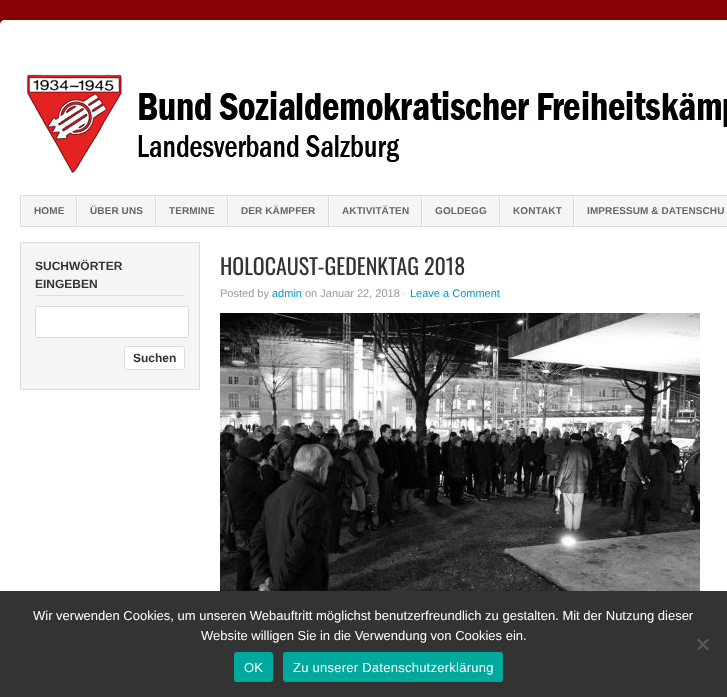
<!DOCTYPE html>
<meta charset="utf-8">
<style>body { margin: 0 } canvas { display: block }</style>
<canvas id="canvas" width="727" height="697"></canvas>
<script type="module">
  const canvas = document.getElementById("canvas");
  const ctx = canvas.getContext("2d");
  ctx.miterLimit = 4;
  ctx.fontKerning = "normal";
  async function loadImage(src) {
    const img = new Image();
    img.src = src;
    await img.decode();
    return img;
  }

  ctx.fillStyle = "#870303";
  ctx.fillRect(0, 0, 727, 697);
  ctx.fillStyle = "#ffffff";
  ctx.beginPath();
  ctx.moveTo(5, 20);
  ctx.lineTo(727, 20);
  ctx.bezierCurveTo(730, 20, 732, 22, 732, 25);
  ctx.lineTo(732, 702);
  ctx.lineTo(0, 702);
  ctx.lineTo(0, 25);
  ctx.bezierCurveTo(0, 22, 2, 20, 5, 20);
  ctx.closePath();
  ctx.fill();
  ctx.drawImage(await loadImage("img1.png"), 23, 74, 704, 99);
  ctx.fillStyle = "#f5f5f5";
  ctx.fillRect(22, 196, 705, 30);
  ctx.strokeStyle = "#dddddd";
  ctx.strokeRect(20.5, 195.5, 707, 31);
  ctx.fillStyle = "#dddddd";
  ctx.fillRect(76, 196, 1, 30);
  ctx.letterSpacing = "0.1px";
  ctx.font = "bold 10px Liberation Sans";
  ctx.fillStyle = "#666666";
  ctx.fillText("HOME", 34, 214);
  ctx.fillStyle = "#dddddd";
  ctx.fillRect(155, 196, 1, 30);
  ctx.fillStyle = "#ffffff";
  ctx.fillRect(77, 196, 1, 30);
  ctx.fillStyle = "#666666";
  ctx.fillText("ÜBER UNS", 90, 214);
  ctx.fillStyle = "#dddddd";
  ctx.fillRect(227, 196, 1, 30);
  ctx.fillStyle = "#ffffff";
  ctx.fillRect(156, 196, 1, 30);
  ctx.fillStyle = "#666666";
  ctx.fillText("TERMINE", 169, 214);
  ctx.fillStyle = "#dddddd";
  ctx.fillRect(328, 196, 1, 30);
  ctx.fillStyle = "#ffffff";
  ctx.fillRect(228, 196, 1, 30);
  ctx.fillStyle = "#666666";
  ctx.fillText("DER KÄMPFER", 241, 214);
  ctx.fillStyle = "#dddddd";
  ctx.fillRect(421, 196, 1, 30);
  ctx.fillStyle = "#ffffff";
  ctx.fillRect(329, 196, 1, 30);
  ctx.fillStyle = "#666666";
  ctx.fillText("AKTIVITÄTEN", 342, 214);
  ctx.fillStyle = "#dddddd";
  ctx.fillRect(499, 196, 1, 30);
  ctx.fillStyle = "#ffffff";
  ctx.fillRect(422, 196, 1, 30);
  ctx.fillStyle = "#666666";
  ctx.fillText("GOLDEGG", 435, 214);
  ctx.fillStyle = "#dddddd";
  ctx.fillRect(573, 196, 1, 30);
  ctx.fillStyle = "#ffffff";
  ctx.fillRect(500, 196, 1, 30);
  ctx.fillStyle = "#666666";
  ctx.fillText("KONTAKT", 513, 214);
  ctx.fillStyle = "#ffffff";
  ctx.fillRect(574, 196, 1, 30);
  ctx.fillStyle = "#666666";
  ctx.fillText("IMPRESSUM & DATENSCHU", 587, 214);
  ctx.fillStyle = "#f5f5f5";
  ctx.beginPath();
  ctx.rect(20.5, 242.5, 179, 147);
  ctx.fill();
  ctx.stroke();
  ctx.fillStyle = "#dddddd";
  ctx.fillRect(35, 295, 150, 1);
  ctx.letterSpacing = "0px";
  ctx.font = "bold 12px Liberation Sans";
  ctx.fillStyle = "#333333";
  ctx.fillText("SUCHWÖRTER", 35, 270);
  ctx.fillText("EINGEBEN", 35, 288);
  ctx.fillStyle = "#ffffff";
  ctx.beginPath();
  ctx.roundRect(35.5, 306.5, 153, 31, 2.5);
  ctx.fill();
  ctx.stroke();
  ctx.beginPath();
  ctx.roundRect(124.5, 346.5, 60, 23, 2.5);
  ctx.fill();
  ctx.stroke();
  ctx.fillStyle = "#333333";
  ctx.fillText("Suchen", 133, 362);
  ctx.font = "22px Oswald";
  ctx.fillText("HOLOCAUST-GEDENKTAG 2018", 220, 275);
  ctx.font = "11px Liberation Sans";
  ctx.fillStyle = "#999999";
  ctx.fillText("Posted by", 220, 297);
  ctx.fillStyle = "#0099cc";
  ctx.fillText("admin", 272, 297);
  ctx.fillStyle = "#999999";
  ctx.fillText("on Januar 22, 2018 ·", 305, 297);
  ctx.fillStyle = "#0099cc";
  ctx.fillText("Leave a Comment", 410, 297);
  ctx.drawImage(await loadImage("img2.png"), 220, 313, 480, 278);
  ctx.fillStyle = "#333333";
  ctx.fillRect(0, 591, 727, 106);
  ctx.font = "13px Liberation Sans";
  ctx.fillStyle = "#ffffff";
  ctx.fillText("Wir verwenden Cookies, um unseren Webauftritt möglichst benutzerfreundlich zu gestalten. Mit der Nutzung dieser", 33, 620);
  ctx.fillText("Website willigen Sie in die Verwendung von Cookies ein.", 201, 640);
  ctx.fillStyle = "#5a5a5a";
  ctx.beginPath();
  ctx.moveTo(707.5, 638.5);
  ctx.lineTo(709, 640);
  ctx.lineTo(698.5, 650.5);
  ctx.lineTo(697, 649);
  ctx.closePath();
  ctx.fill();
  ctx.beginPath();
  ctx.moveTo(697, 640);
  ctx.lineTo(698.5, 638.5);
  ctx.lineTo(709, 649);
  ctx.lineTo(707.5, 650.5);
  ctx.closePath();
  ctx.fill();
  ctx.fillStyle = "#00a99d";
  ctx.beginPath();
  ctx.roundRect(234, 652, 39, 30, 3);
  ctx.fill();
  ctx.letterSpacing = "0.25px";
  ctx.fillStyle = "#ffffff";
  ctx.fillText("OK", 244, 672);
  ctx.fillStyle = "#00a99d";
  ctx.beginPath();
  ctx.roundRect(283, 652, 220, 30, 3);
  ctx.fill();
  ctx.fillStyle = "#ffffff";
  ctx.fillText("Zu unserer Datenschutzerklärung", 293, 672);
</script>
